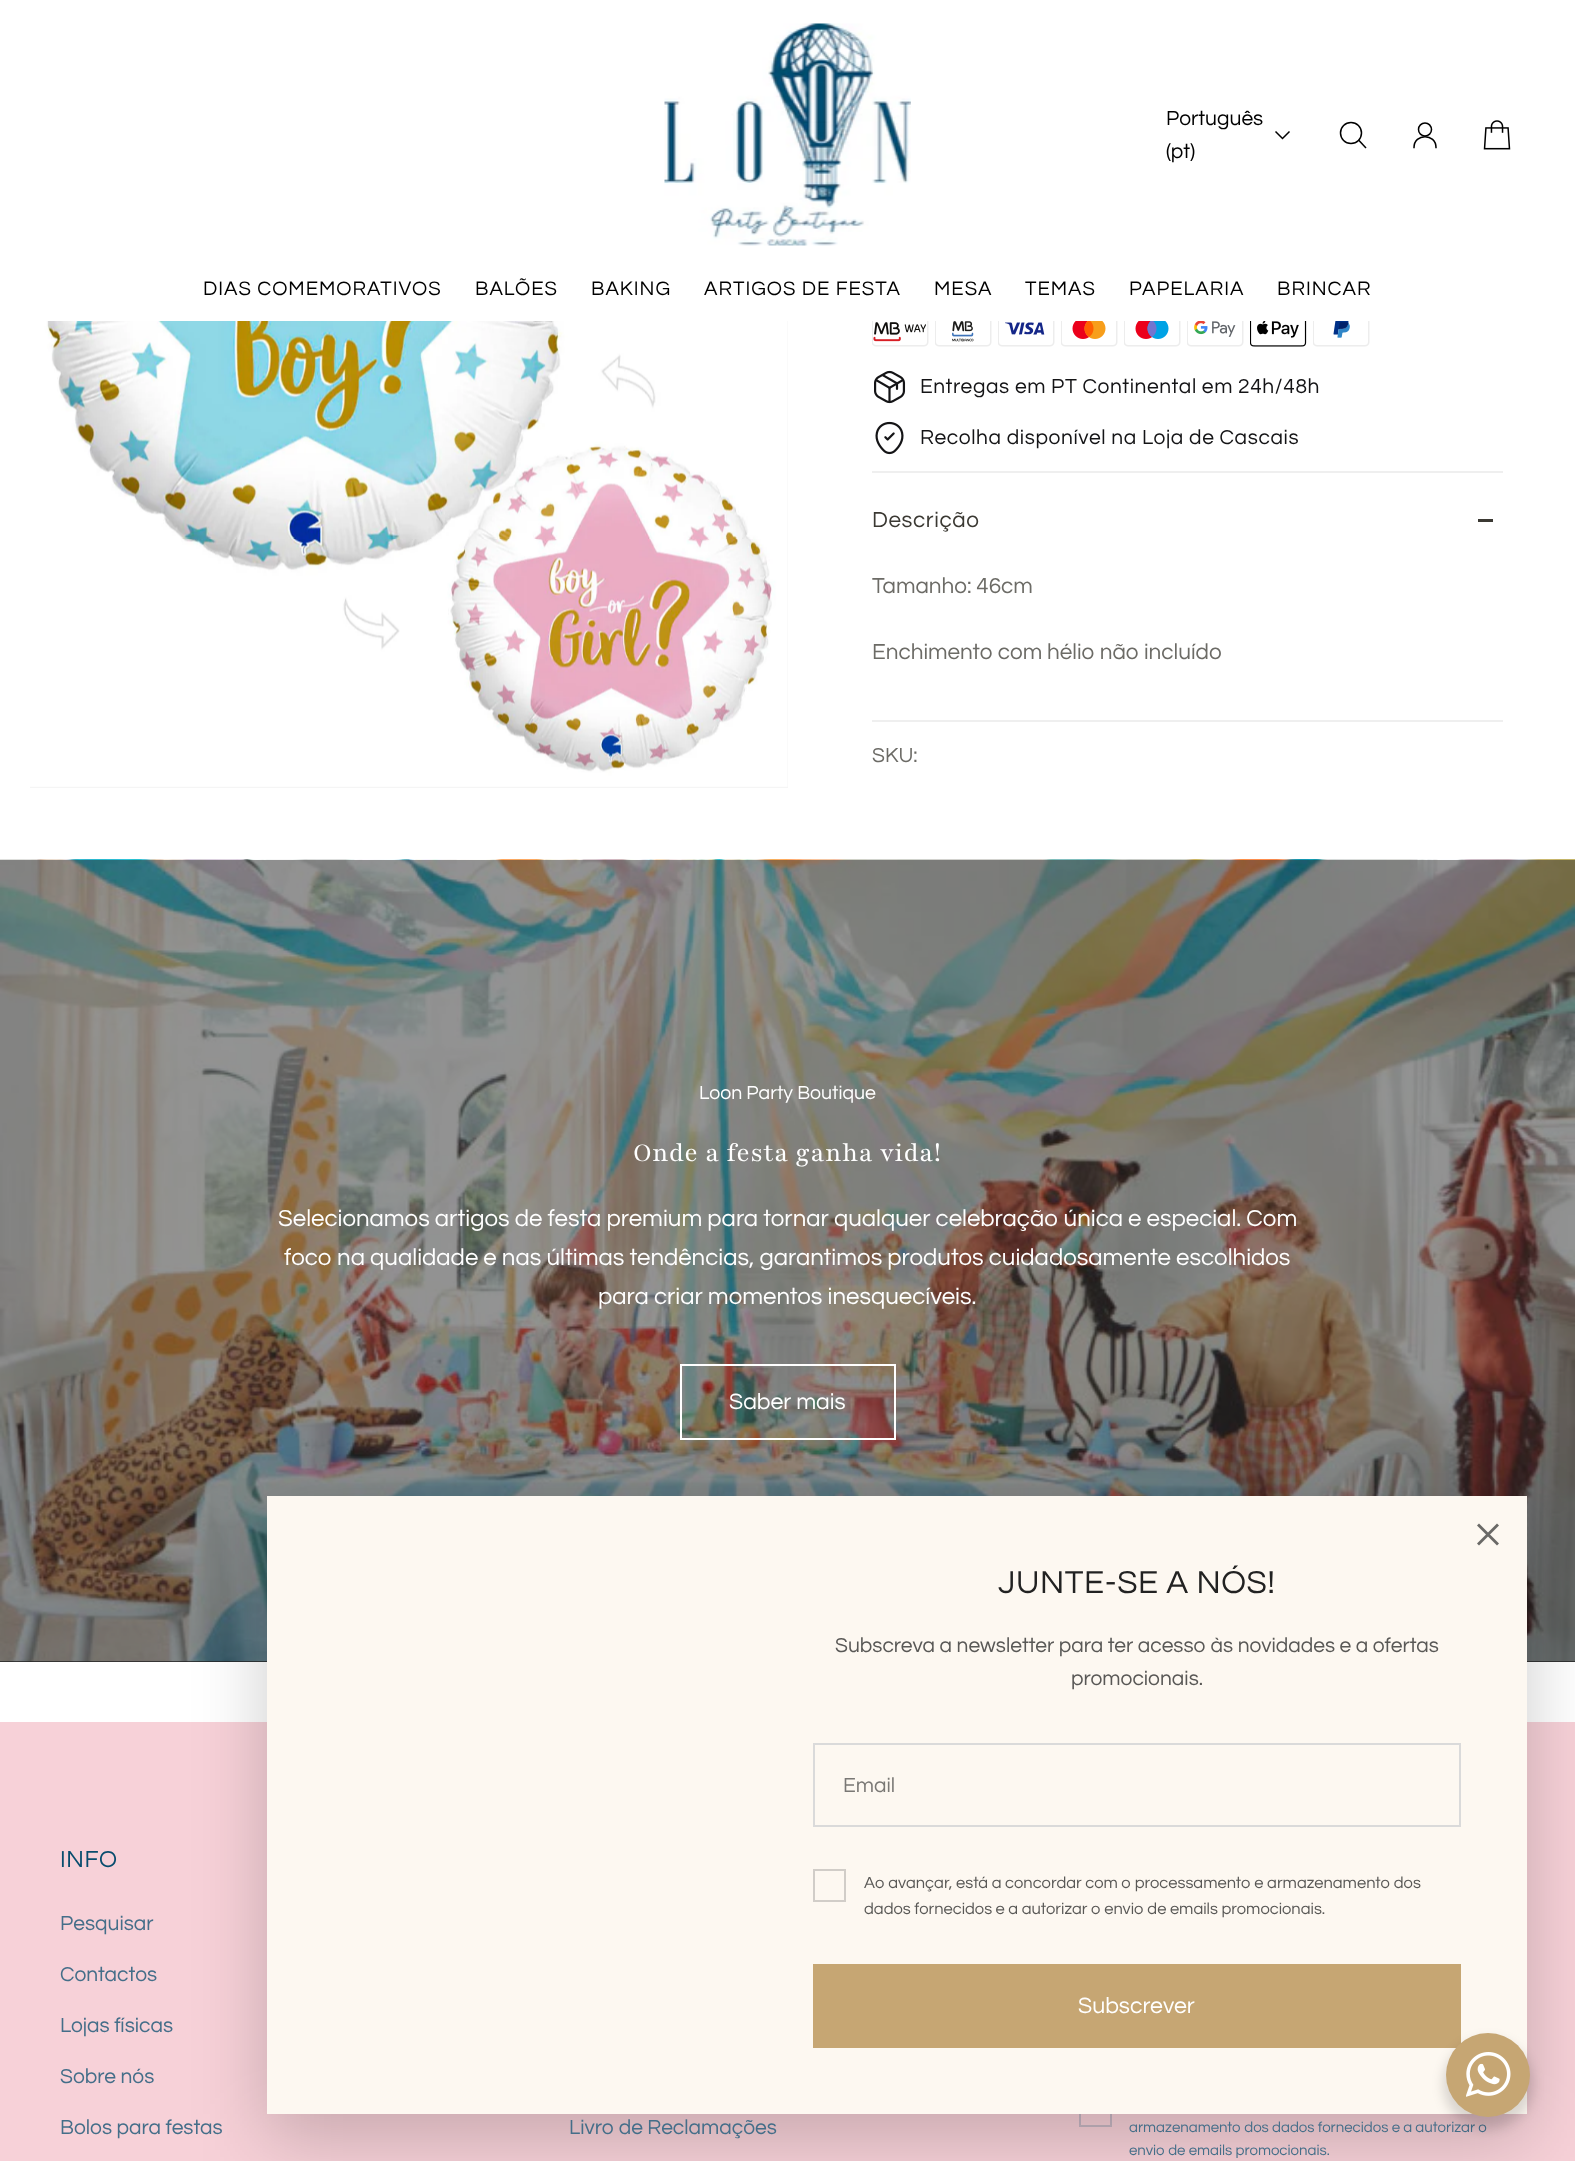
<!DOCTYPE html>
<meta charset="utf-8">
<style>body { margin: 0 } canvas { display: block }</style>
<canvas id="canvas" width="1575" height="2161"></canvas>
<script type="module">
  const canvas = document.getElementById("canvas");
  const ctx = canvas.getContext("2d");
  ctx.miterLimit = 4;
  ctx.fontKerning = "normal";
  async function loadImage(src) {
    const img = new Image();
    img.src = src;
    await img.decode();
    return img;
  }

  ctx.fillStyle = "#ffffff";
  ctx.fillRect(0, 0, 1575, 2161);
  ctx.drawImage(await loadImage("img1.png"), 664, 23, 247, 223);
  ctx.font = "21px questrial";
  ctx.fillStyle = "#000000";
  ctx.fillText("Português", 1166, 125);
  ctx.beginPath();
  ctx.moveTo(1289.5, 131.5);
  ctx.lineTo(1282.5, 138.5);
  ctx.lineTo(1275.5, 131.5);
  ctx.strokeStyle = "#000000";
  ctx.lineWidth = 1.5;
  ctx.stroke();
  ctx.fillText("(pt)", 1166, 158);
  ctx.beginPath();
  ctx.arc(1351, 133, 10.5, 0, Math.PI * 2);
  ctx.stroke();
  ctx.beginPath();
  ctx.moveTo(1359, 140.5);
  ctx.lineTo(1365.5, 147.5);
  ctx.lineCap = "square";
  ctx.lineJoin = "round";
  ctx.stroke();
  ctx.beginPath();
  ctx.arc(1425, 129.5, 6.5, 0, Math.PI * 2);
  ctx.stroke();
  ctx.beginPath();
  ctx.moveTo(1436, 147.5);
  ctx.bezierCurveTo(1436, 133, 1414, 133, 1414, 147.5);
  ctx.stroke();
  ctx.drawImage(await loadImage("img2.png"), 1483, 120, 28, 30);
  ctx.letterSpacing = "1px";
  ctx.font = "20.25px questrial";
  ctx.fillText("DIAS COMEMORATIVOS", 203, 295);
  ctx.fillText("BALÕES", 475, 295);
  ctx.fillText("BAKING", 591, 295);
  ctx.fillText("ARTIGOS DE FESTA", 704, 295);
  ctx.fillText("MESA", 934, 295);
  ctx.fillText("TEMAS", 1025, 295);
  ctx.fillText("PAPELARIA", 1129, 295);
  ctx.fillText("BRINCAR", 1277, 295);
  ctx.fillStyle = "#f5f5f5";
  ctx.fillRect(30, 321, 758, 467);
  ctx.drawImage(await loadImage("img3.png"), 30, 321, 758, 466);
  ctx.drawImage(await loadImage("img4.png"), 872, 321, 57, 26);
  ctx.drawImage(await loadImage("img5.png"), 935, 321, 57, 26);
  ctx.drawImage(await loadImage("img6.png"), 998, 321, 57, 26);
  ctx.drawImage(await loadImage("img7.png"), 1061, 321, 57, 26);
  ctx.drawImage(await loadImage("img8.png"), 1124, 321, 57, 26);
  ctx.drawImage(await loadImage("img9.png"), 1187, 321, 57, 26);
  ctx.drawImage(await loadImage("img10.png"), 1250, 321, 57, 26);
  ctx.drawImage(await loadImage("img11.png"), 1313, 321, 57, 26);
  ctx.drawImage(await loadImage("img12.png"), 874, 370, 32, 34);
  ctx.letterSpacing = "0.6px";
  ctx.font = "21px questrial";
  ctx.fillStyle = "#141416";
  ctx.fillText("Entregas em PT Continental em 24h/48h", 920, 393);
  ctx.drawImage(await loadImage("img13.png"), 875, 421, 29, 34);
  ctx.fillText("Recolha disponível na Loja de Cascais", 920, 444);
  ctx.fillStyle = "#efefef";
  ctx.fillRect(872, 471, 631, 2);
  ctx.fillRect(872, 720, 631, 2);
  ctx.font = "22.5px questrial";
  ctx.fillStyle = "#3b3933";
  ctx.fillText("Descrição", 872, 527);
  ctx.fillRect(1478, 519, 15, 3);
  ctx.letterSpacing = "0px";
  ctx.fillStyle = "#6c6b66";
  ctx.fillText("Tamanho: 46cm", 872, 593);
  ctx.fillText("Enchimento com hélio não incluído", 872, 659);
  ctx.font = "21px questrial";
  ctx.fillText("SKU:", 872, 762);
  ctx.fillStyle = "#222222";
  ctx.fillRect(0, 1661, 1575, 1);
  ctx.drawImage(await loadImage("img14.png"), 0, 859, 1575, 803);
  ctx.font = "19.5px questrial";
  ctx.fillStyle = "#ffffff";
  ctx.fillText("Loon Party Boutique", 699, 1099);
  ctx.letterSpacing = "0.6px";
  ctx.font = "28.5px Playfair";
  ctx.fillText("Onde a festa ganha vida!", 633, 1161);
  ctx.letterSpacing = "0px";
  ctx.font = "24px questrial";
  ctx.fillText("Selecionamos artigos de festa premium para tornar qualquer celebração única e especial. Com", 278, 1226);
  ctx.fillText("foco na qualidade e nas últimas tendências, garantimos produtos cuidadosamente escolhidos", 284, 1265);
  ctx.fillText("para criar momentos inesquecíveis.", 598, 1304);
  ctx.strokeStyle = "#ffffff";
  ctx.lineWidth = 2;
  ctx.lineJoin = "miter";
  ctx.strokeRect(681, 1365, 214, 74);
  ctx.font = "23px questrial";
  ctx.fillText("Saber mais", 729, 1409);
  ctx.fillStyle = "#f7d1d8";
  ctx.fillRect(0, 1722, 1575, 439);
  ctx.strokeStyle = "#c7b7c3";
  ctx.strokeRect(1080, 2095, 31, 31);
  ctx.fillStyle = "rgba(0, 0, 0, 0.2)";
  ctx.filter = "blur(36px)";
  ctx.beginPath();
  ctx.rect(267, 1520, 1260, 618);
  ctx.fill();
  ctx.filter = "none";
  ctx.fillStyle = "#fdf8f1";
  ctx.fillRect(267, 1496, 1260, 618);
  ctx.fillStyle = "#6a6966";
  ctx.beginPath();
  ctx.moveTo(1479, 1523.5);
  ctx.lineTo(1499, 1543.5);
  ctx.lineTo(1497, 1545.5);
  ctx.lineTo(1477, 1525.5);
  ctx.closePath();
  ctx.fill();
  ctx.beginPath();
  ctx.moveTo(1477, 1543.5);
  ctx.lineTo(1497, 1523.5);
  ctx.lineTo(1499, 1525.5);
  ctx.lineTo(1479, 1545.5);
  ctx.closePath();
  ctx.fill();
  ctx.letterSpacing = "0.6px";
  ctx.font = "33px questrial";
  ctx.fillStyle = "#222222";
  ctx.fillText("JUNTE-SE A NÓS!", 998, 1593);
  ctx.letterSpacing = "0px";
  ctx.font = "21px questrial";
  ctx.fillStyle = "#595856";
  ctx.fillText("Subscreva a newsletter para ter acesso às novidades e a ofertas", 835, 1652);
  ctx.fillText("promocionais.", 1071, 1685);
  ctx.strokeStyle = "#dadada";
  ctx.strokeRect(814, 1744, 646, 82);
  ctx.fillStyle = "#7a7875";
  ctx.fillText("Email", 843, 1792);
  ctx.strokeStyle = "#d1cdc8";
  ctx.strokeRect(814, 1870, 31, 31);
  ctx.font = "16.5px questrial";
  ctx.fillStyle = "#595856";
  ctx.fillText("Ao avançar, está a concordar com o processamento e armazenamento dos", 864, 1888);
  ctx.fillText("dados fornecidos e a autorizar o envio de emails promocionais.", 864, 1914);
  ctx.fillStyle = "#c6a673";
  ctx.fillRect(813, 1964, 648, 84);
  ctx.font = "23px questrial";
  ctx.fillStyle = "#ffffff";
  ctx.fillText("Subscrever", 1078, 2013);
  ctx.letterSpacing = "0.6px";
  ctx.font = "24px questrial";
  ctx.fillStyle = "#084d6e";
  ctx.fillText("INFO", 60, 1867);
  ctx.letterSpacing = "0px";
  ctx.font = "21px questrial";
  ctx.fillStyle = "#446e89";
  ctx.fillText("Pesquisar", 60, 1930);
  ctx.fillText("Contactos", 60, 1981);
  ctx.fillText("Lojas físicas", 60, 2032);
  ctx.fillText("Sobre nós", 60, 2083);
  ctx.fillText("Bolos para festas", 60, 2134);
  ctx.fillText("Livro de Reclamações", 569, 2134);
  ctx.font = "15px questrial";
  ctx.fillText("armazenamento dos dados fornecidos e a autorizar o", 1129, 2132);
  ctx.fillText("envio de emails promocionais.", 1129, 2155);
  ctx.fillStyle = "rgba(0, 0, 0, 0.14)";
  ctx.filter = "blur(6px)";
  ctx.beginPath();
  ctx.roundRect(1443, 2039, 90, 90, 45);
  ctx.fill();
  ctx.filter = "none";
  ctx.fillStyle = "#c6a673";
  ctx.beginPath();
  ctx.arc(1488, 2075, 42, 0, Math.PI * 2);
  ctx.fill();
  ctx.drawImage(await loadImage("img15.png"), 1466, 2052, 45, 45);
</script>
